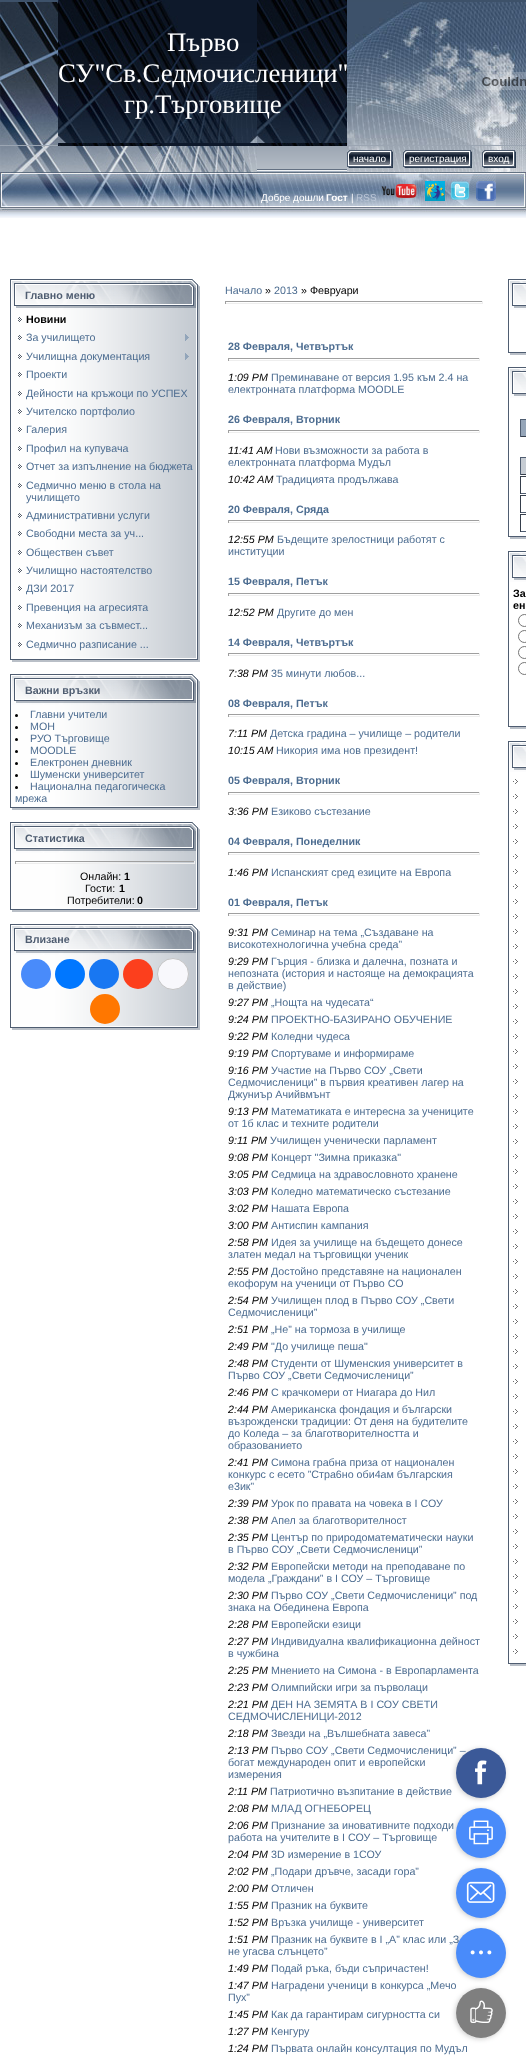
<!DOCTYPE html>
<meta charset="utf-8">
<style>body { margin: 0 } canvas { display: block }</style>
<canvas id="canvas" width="526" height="2063"></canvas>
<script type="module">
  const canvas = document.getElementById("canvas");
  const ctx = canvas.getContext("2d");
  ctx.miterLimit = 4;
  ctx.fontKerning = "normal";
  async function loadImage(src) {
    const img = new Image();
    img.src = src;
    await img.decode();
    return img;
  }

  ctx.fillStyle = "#ffffff";
  ctx.fillRect(0, 0, 526, 2063);
  ctx.drawImage(await loadImage("img1.png"), 0, 0, 526, 172);
  ctx.drawImage(await loadImage("img2.png"), 0, 2, 58, 143);
  ctx.drawImage(await loadImage("img3.png"), 58, 0, 289, 146);
  ctx.font = "26.75px Liberation Serif";
  ctx.fillText("Първо", 167, 51);
  ctx.fillText("СУ\"Св.Седмочисленици\"", 58, 82);
  ctx.fillText("гр.Търговище", 124, 113);
  ctx.drawImage(await loadImage("img4.png"), 347, 2, 179, 143);
  ctx.drawImage(await loadImage("img5.png"), 475, 72, 51, 18);
  ctx.drawImage(await loadImage("img6.png"), 0, 146, 58, 26);
  ctx.drawImage(await loadImage("img7.png"), 58, 146, 199, 26);
  ctx.drawImage(await loadImage("img8.png"), 347, 146, 179, 26);
  ctx.drawImage(await loadImage("img9.png"), 351, 150, 42, 18);
  ctx.drawImage(await loadImage("img10.png"), 347, 150, 4, 18);
  ctx.font = "10px Liberation Sans";
  ctx.fillText("начало", 353, 162);
  ctx.drawImage(await loadImage("img11.png"), 389, 150, 4, 17);
  ctx.drawImage(await loadImage("img12.png"), 407, 150, 65, 18);
  ctx.drawImage(await loadImage("img10.png"), 403, 150, 4, 18);
  ctx.fillText("регистрация", 409, 162);
  ctx.drawImage(await loadImage("img11.png"), 468, 150, 4, 17);
  ctx.drawImage(await loadImage("img13.png"), 486, 150, 30, 18);
  ctx.drawImage(await loadImage("img10.png"), 482, 150, 4, 18);
  ctx.fillText("вход", 488, 162);
  ctx.drawImage(await loadImage("img11.png"), 512, 150, 4, 17);
  ctx.drawImage(await loadImage("img14.png"), 0, 172, 30, 46);
  ctx.drawImage(await loadImage("img15.png"), 30, 172, 466, 46);
  ctx.fillText("Добре дошли", 261, 201);
  ctx.font = "bold 10px Liberation Sans";
  ctx.fillText("Гост", 326, 201);
  ctx.font = "10px Liberation Sans";
  ctx.fillText("|", 351, 201);
  ctx.fillStyle = "#bdc8d8";
  ctx.fillText("RSS", 356, 201);
  ctx.drawImage(await loadImage("img16.png"), 381, 183, 36, 16);
  ctx.drawImage(await loadImage("img17.png"), 425, 181, 20, 20);
  ctx.drawImage(await loadImage("img18.png"), 450, 181, 20, 19);
  ctx.drawImage(await loadImage("img19.png"), 476, 181, 20, 20);
  ctx.drawImage(await loadImage("img20.png"), 496, 172, 30, 46);
  ctx.drawImage(await loadImage("img21.png"), 10, 279, 190, 31);
  ctx.font = "bold 10.7px Liberation Sans";
  ctx.fillStyle = "#4f5d71";
  ctx.fillText("Главно меню", 25, 299);
  ctx.drawImage(await loadImage("img22.png"), 10, 310, 190, 346);
  ctx.drawImage(await loadImage("img23.png"), 18, 317, 4, 5);
  ctx.fillStyle = "#000000";
  ctx.fillText("Новини", 26, 323);
  ctx.drawImage(await loadImage("img23.png"), 18, 335, 4, 5);
  ctx.font = "10.7px Liberation Sans";
  ctx.fillStyle = "#4d6d91";
  ctx.fillText("За училището", 26, 341);
  ctx.drawImage(await loadImage("img24.png"), 185, 334, 4, 7);
  ctx.drawImage(await loadImage("img23.png"), 18, 354, 4, 5);
  ctx.fillText("Училищна документация", 26, 360);
  ctx.drawImage(await loadImage("img24.png"), 185, 353, 4, 7);
  ctx.drawImage(await loadImage("img23.png"), 18, 372, 4, 5);
  ctx.fillText("Проекти", 26, 378);
  ctx.drawImage(await loadImage("img23.png"), 18, 391, 4, 5);
  ctx.fillText("Дейности на кръжоци по УСПЕХ", 26, 397);
  ctx.drawImage(await loadImage("img23.png"), 18, 409, 4, 5);
  ctx.fillText("Учителско портфолио", 26, 415);
  ctx.drawImage(await loadImage("img23.png"), 18, 427, 4, 5);
  ctx.fillText("Галерия", 26, 433);
  ctx.drawImage(await loadImage("img23.png"), 18, 446, 4, 5);
  ctx.fillText("Профил на купувача", 26, 452);
  ctx.drawImage(await loadImage("img23.png"), 18, 464, 4, 5);
  ctx.fillText("Отчет за изпълнение на бюджета", 26, 470);
  ctx.drawImage(await loadImage("img23.png"), 18, 483, 4, 5);
  ctx.fillText("Седмично меню в стола на", 26, 489);
  ctx.fillText("училището", 26, 501);
  ctx.drawImage(await loadImage("img23.png"), 18, 513, 4, 5);
  ctx.fillText("Административни услуги", 26, 519);
  ctx.drawImage(await loadImage("img23.png"), 18, 531, 4, 5);
  ctx.fillText("Свободни места за уч...", 26, 537);
  ctx.drawImage(await loadImage("img23.png"), 18, 550, 4, 5);
  ctx.fillText("Обществен съвет", 26, 556);
  ctx.drawImage(await loadImage("img23.png"), 18, 568, 4, 5);
  ctx.fillText("Училищно настоятелство", 26, 574);
  ctx.drawImage(await loadImage("img23.png"), 18, 586, 4, 5);
  ctx.fillText("ДЗИ 2017", 26, 592);
  ctx.drawImage(await loadImage("img23.png"), 18, 605, 4, 5);
  ctx.fillText("Превенция на агресията", 26, 611);
  ctx.drawImage(await loadImage("img23.png"), 18, 623, 4, 5);
  ctx.fillText("Механизъм за съвмест...", 26, 629);
  ctx.drawImage(await loadImage("img23.png"), 18, 642, 4, 5);
  ctx.fillText("Седмично разписание ...", 26, 648);
  ctx.drawImage(await loadImage("img25.png"), 10, 656, 190, 6);
  ctx.drawImage(await loadImage("img21.png"), 10, 674, 190, 31);
  ctx.font = "bold 10.7px Liberation Sans";
  ctx.fillStyle = "#4f5d71";
  ctx.fillText("Важни връзки", 25, 694);
  ctx.drawImage(await loadImage("img26.png"), 10, 705, 190, 99);
  ctx.fillStyle = "#000000";
  ctx.beginPath();
  ctx.arc(16.5, 715.5, 1.5, 0, Math.PI * 2);
  ctx.fill();
  ctx.font = "10.7px Liberation Sans";
  ctx.fillStyle = "#4d6d91";
  ctx.fillText("Главни учители", 30, 718);
  ctx.fillStyle = "#000000";
  ctx.beginPath();
  ctx.arc(16.5, 727.5, 1.5, 0, Math.PI * 2);
  ctx.fill();
  ctx.fillStyle = "#4d6d91";
  ctx.fillText("МОН", 30, 730);
  ctx.fillStyle = "#000000";
  ctx.beginPath();
  ctx.arc(16.5, 739.5, 1.5, 0, Math.PI * 2);
  ctx.fill();
  ctx.fillStyle = "#4d6d91";
  ctx.fillText("РУО Търговище", 30, 742);
  ctx.fillStyle = "#000000";
  ctx.beginPath();
  ctx.arc(16.5, 751.5, 1.5, 0, Math.PI * 2);
  ctx.fill();
  ctx.fillStyle = "#4d6d91";
  ctx.fillText("MOODLE", 30, 754);
  ctx.fillStyle = "#000000";
  ctx.beginPath();
  ctx.arc(16.5, 763.5, 1.5, 0, Math.PI * 2);
  ctx.fill();
  ctx.fillStyle = "#4d6d91";
  ctx.fillText("Електронен дневник", 30, 766);
  ctx.fillStyle = "#000000";
  ctx.beginPath();
  ctx.arc(16.5, 775.5, 1.5, 0, Math.PI * 2);
  ctx.fill();
  ctx.fillStyle = "#4d6d91";
  ctx.fillText("Шуменски университет", 30, 778);
  ctx.fillStyle = "#000000";
  ctx.beginPath();
  ctx.arc(16.5, 787.5, 1.5, 0, Math.PI * 2);
  ctx.fill();
  ctx.fillStyle = "#4d6d91";
  ctx.fillText("Национална педагогическа", 30, 790);
  ctx.fillText("мрежа", 15, 802);
  ctx.drawImage(await loadImage("img25.png"), 10, 804, 190, 6);
  ctx.drawImage(await loadImage("img21.png"), 10, 822, 190, 31);
  ctx.font = "bold 10.7px Liberation Sans";
  ctx.fillStyle = "#4f5d71";
  ctx.fillText("Статистика", 25, 842);
  ctx.drawImage(await loadImage("img27.png"), 10, 853, 190, 53);
  ctx.fillStyle = "#9f9f9f";
  ctx.fillRect(15, 861, 180, 1);
  ctx.fillStyle = "#eeeeee";
  ctx.fillRect(194, 861, 1, 3);
  ctx.fillRect(15, 863, 180, 1);
  ctx.fillStyle = "#9f9f9f";
  ctx.fillRect(15, 861, 1, 3);
  ctx.font = "10.7px Liberation Sans";
  ctx.fillStyle = "#000000";
  ctx.fillText("Онлайн:", 80, 880);
  ctx.font = "bold 10.7px Liberation Sans";
  ctx.fillText("1", 124, 880);
  ctx.font = "10.7px Liberation Sans";
  ctx.fillText("Гости:", 85, 892);
  ctx.font = "bold 10.7px Liberation Sans";
  ctx.fillText("1", 119, 892);
  ctx.font = "10.7px Liberation Sans";
  ctx.fillText("Потребители:", 67, 904);
  ctx.font = "bold 10.7px Liberation Sans";
  ctx.fillText("0", 137, 904);
  ctx.drawImage(await loadImage("img25.png"), 10, 906, 190, 6);
  ctx.drawImage(await loadImage("img21.png"), 10, 924, 190, 31);
  ctx.fillStyle = "#4f5d71";
  ctx.fillText("Влизане", 25, 943);
  ctx.drawImage(await loadImage("img28.png"), 10, 955, 190, 69);
  ctx.fillStyle = "#498bfa";
  ctx.beginPath();
  ctx.arc(36, 974, 15, 0, Math.PI * 2);
  ctx.fill();
  ctx.fillStyle = "#0077ff";
  ctx.beginPath();
  ctx.arc(70, 974, 15, 0, Math.PI * 2);
  ctx.fill();
  ctx.fillStyle = "#1877f2";
  ctx.beginPath();
  ctx.arc(104, 974, 15, 0, Math.PI * 2);
  ctx.fill();
  ctx.fillStyle = "#fc3f1d";
  ctx.beginPath();
  ctx.arc(138, 974, 15, 0, Math.PI * 2);
  ctx.fill();
  ctx.fillStyle = "#f8f8fc";
  ctx.beginPath();
  ctx.arc(173, 974, 15.5, 0, Math.PI * 2);
  ctx.fill();
  ctx.strokeStyle = "#c4c4c4";
  ctx.stroke();
  ctx.fillStyle = "#ff7700";
  ctx.beginPath();
  ctx.arc(105, 1009, 15, 0, Math.PI * 2);
  ctx.fill();
  ctx.drawImage(await loadImage("img25.png"), 10, 1024, 190, 6);
  ctx.font = "10.7px Liberation Sans";
  ctx.fillStyle = "#4d6d91";
  ctx.fillText("Начало", 225, 294);
  ctx.fillStyle = "#000000";
  ctx.fillText("»", 265, 294);
  ctx.fillStyle = "#4d6d91";
  ctx.fillText("2013", 274, 294);
  ctx.fillStyle = "#000000";
  ctx.fillText("» Февруари", 301, 294);
  ctx.fillStyle = "#9f9f9f";
  ctx.fillRect(225, 301, 258, 1);
  ctx.fillStyle = "#eeeeee";
  ctx.fillRect(482, 301, 1, 3);
  ctx.fillRect(225, 303, 258, 1);
  ctx.fillStyle = "#9f9f9f";
  ctx.fillRect(225, 301, 1, 3);
  ctx.font = "bold 10.7px Liberation Sans";
  ctx.fillStyle = "#4d6d91";
  ctx.fillText("28 Февраля, Четвъртък", 228, 350);
  ctx.fillStyle = "#9f9f9f";
  ctx.fillRect(228, 358, 252, 1);
  ctx.fillStyle = "#eeeeee";
  ctx.fillRect(479, 358, 1, 3);
  ctx.fillRect(228, 360, 252, 1);
  ctx.fillStyle = "#9f9f9f";
  ctx.fillRect(228, 358, 1, 3);
  ctx.font = "italic 10.7px Liberation Sans";
  ctx.fillStyle = "#000000";
  ctx.fillText("1:09 PM", 228, 381);
  ctx.font = "10.7px Liberation Sans";
  ctx.fillStyle = "#4d6d91";
  ctx.fillText("Преминаване от версия 1.95 към 2.4 на", 271, 381);
  ctx.fillText("електронната платформа MOODLE", 228, 393);
  ctx.font = "bold 10.7px Liberation Sans";
  ctx.fillText("26 Февраля, Вторник", 228, 423);
  ctx.fillStyle = "#9f9f9f";
  ctx.fillRect(228, 430, 252, 1);
  ctx.fillStyle = "#eeeeee";
  ctx.fillRect(479, 430, 1, 3);
  ctx.fillRect(228, 432, 252, 1);
  ctx.fillStyle = "#9f9f9f";
  ctx.fillRect(228, 430, 1, 3);
  ctx.font = "italic 10.7px Liberation Sans";
  ctx.fillStyle = "#000000";
  ctx.fillText("11:41 AM", 228, 454);
  ctx.font = "10.7px Liberation Sans";
  ctx.fillStyle = "#4d6d91";
  ctx.fillText("Нови възможности за работа в", 275, 454);
  ctx.fillText("електронната платформа Мудъл", 228, 466);
  ctx.font = "italic 10.7px Liberation Sans";
  ctx.fillStyle = "#000000";
  ctx.fillText("10:42 AM", 228, 483);
  ctx.font = "10.7px Liberation Sans";
  ctx.fillStyle = "#4d6d91";
  ctx.fillText("Традицията продължава", 276, 483);
  ctx.font = "bold 10.7px Liberation Sans";
  ctx.fillText("20 Февраля, Сряда", 228, 513);
  ctx.fillStyle = "#9f9f9f";
  ctx.fillRect(228, 520, 252, 1);
  ctx.fillStyle = "#eeeeee";
  ctx.fillRect(479, 520, 1, 3);
  ctx.fillRect(228, 522, 252, 1);
  ctx.fillStyle = "#9f9f9f";
  ctx.fillRect(228, 520, 1, 3);
  ctx.font = "italic 10.7px Liberation Sans";
  ctx.fillStyle = "#000000";
  ctx.fillText("12:55 PM", 228, 543);
  ctx.font = "10.7px Liberation Sans";
  ctx.fillStyle = "#4d6d91";
  ctx.fillText("Бъдещите зрелостници работят с", 277, 543);
  ctx.fillText("институции", 228, 555);
  ctx.font = "bold 10.7px Liberation Sans";
  ctx.fillText("15 Февраля, Петък", 228, 585);
  ctx.fillStyle = "#9f9f9f";
  ctx.fillRect(228, 593, 252, 1);
  ctx.fillStyle = "#eeeeee";
  ctx.fillRect(479, 593, 1, 3);
  ctx.fillRect(228, 595, 252, 1);
  ctx.fillStyle = "#9f9f9f";
  ctx.fillRect(228, 593, 1, 3);
  ctx.font = "italic 10.7px Liberation Sans";
  ctx.fillStyle = "#000000";
  ctx.fillText("12:52 PM", 228, 616);
  ctx.font = "10.7px Liberation Sans";
  ctx.fillStyle = "#4d6d91";
  ctx.fillText("Другите до мен", 277, 616);
  ctx.font = "bold 10.7px Liberation Sans";
  ctx.fillText("14 Февраля, Четвъртък", 228, 646);
  ctx.fillStyle = "#9f9f9f";
  ctx.fillRect(228, 653, 252, 1);
  ctx.fillStyle = "#eeeeee";
  ctx.fillRect(479, 653, 1, 3);
  ctx.fillRect(228, 655, 252, 1);
  ctx.fillStyle = "#9f9f9f";
  ctx.fillRect(228, 653, 1, 3);
  ctx.font = "italic 10.7px Liberation Sans";
  ctx.fillStyle = "#000000";
  ctx.fillText("7:38 PM", 228, 677);
  ctx.font = "10.7px Liberation Sans";
  ctx.fillStyle = "#4d6d91";
  ctx.fillText("35 минути любов...", 271, 677);
  ctx.font = "bold 10.7px Liberation Sans";
  ctx.fillText("08 Февраля, Петък", 228, 707);
  ctx.fillStyle = "#9f9f9f";
  ctx.fillRect(228, 714, 252, 1);
  ctx.fillStyle = "#eeeeee";
  ctx.fillRect(479, 714, 1, 3);
  ctx.fillRect(228, 716, 252, 1);
  ctx.fillStyle = "#9f9f9f";
  ctx.fillRect(228, 714, 1, 3);
  ctx.font = "italic 10.7px Liberation Sans";
  ctx.fillStyle = "#000000";
  ctx.fillText("7:11 PM", 228, 737);
  ctx.font = "10.7px Liberation Sans";
  ctx.fillStyle = "#4d6d91";
  ctx.fillText("Детска градина – училище – родители", 270, 737);
  ctx.font = "italic 10.7px Liberation Sans";
  ctx.fillStyle = "#000000";
  ctx.fillText("10:15 AM", 228, 754);
  ctx.font = "10.7px Liberation Sans";
  ctx.fillStyle = "#4d6d91";
  ctx.fillText("Никория има нов президент!", 276, 754);
  ctx.font = "bold 10.7px Liberation Sans";
  ctx.fillText("05 Февраля, Вторник", 228, 784);
  ctx.fillStyle = "#9f9f9f";
  ctx.fillRect(228, 792, 252, 1);
  ctx.fillStyle = "#eeeeee";
  ctx.fillRect(479, 792, 1, 3);
  ctx.fillRect(228, 794, 252, 1);
  ctx.fillStyle = "#9f9f9f";
  ctx.fillRect(228, 792, 1, 3);
  ctx.font = "italic 10.7px Liberation Sans";
  ctx.fillStyle = "#000000";
  ctx.fillText("3:36 PM", 228, 815);
  ctx.font = "10.7px Liberation Sans";
  ctx.fillStyle = "#4d6d91";
  ctx.fillText("Езиково състезание", 271, 815);
  ctx.font = "bold 10.7px Liberation Sans";
  ctx.fillText("04 Февраля, Понеделник", 228, 845);
  ctx.fillStyle = "#9f9f9f";
  ctx.fillRect(228, 852, 252, 1);
  ctx.fillStyle = "#eeeeee";
  ctx.fillRect(479, 852, 1, 3);
  ctx.fillRect(228, 854, 252, 1);
  ctx.fillStyle = "#9f9f9f";
  ctx.fillRect(228, 852, 1, 3);
  ctx.font = "italic 10.7px Liberation Sans";
  ctx.fillStyle = "#000000";
  ctx.fillText("1:46 PM", 228, 876);
  ctx.font = "10.7px Liberation Sans";
  ctx.fillStyle = "#4d6d91";
  ctx.fillText("Испанският сред езиците на Европа", 271, 876);
  ctx.font = "bold 10.7px Liberation Sans";
  ctx.fillText("01 Февраля, Петък", 228, 906);
  ctx.fillStyle = "#9f9f9f";
  ctx.fillRect(228, 913, 252, 1);
  ctx.fillStyle = "#eeeeee";
  ctx.fillRect(479, 913, 1, 3);
  ctx.fillRect(228, 915, 252, 1);
  ctx.fillStyle = "#9f9f9f";
  ctx.fillRect(228, 913, 1, 3);
  ctx.font = "italic 10.7px Liberation Sans";
  ctx.fillStyle = "#000000";
  ctx.fillText("9:31 PM", 228, 936);
  ctx.font = "10.7px Liberation Sans";
  ctx.fillStyle = "#4d6d91";
  ctx.fillText("Семинар на тема „Създаване на", 271, 936);
  ctx.fillText("високотехнологична учебна среда”", 228, 948);
  ctx.font = "italic 10.7px Liberation Sans";
  ctx.fillStyle = "#000000";
  ctx.fillText("9:29 PM", 228, 965);
  ctx.font = "10.7px Liberation Sans";
  ctx.fillStyle = "#4d6d91";
  ctx.fillText("Гърция - близка и далечна, позната и", 271, 965);
  ctx.fillText("непозната (история и настояще на демокрацията", 228, 977);
  ctx.fillText("в действие)", 228, 989);
  ctx.font = "italic 10.7px Liberation Sans";
  ctx.fillStyle = "#000000";
  ctx.fillText("9:27 PM", 228, 1006);
  ctx.font = "10.7px Liberation Sans";
  ctx.fillStyle = "#4d6d91";
  ctx.fillText("„Нощта на чудесата“", 271, 1006);
  ctx.font = "italic 10.7px Liberation Sans";
  ctx.fillStyle = "#000000";
  ctx.fillText("9:24 PM", 228, 1023);
  ctx.font = "10.7px Liberation Sans";
  ctx.fillStyle = "#4d6d91";
  ctx.fillText("ПРОЕКТНО-БАЗИРАНО ОБУЧЕНИЕ", 271, 1023);
  ctx.font = "italic 10.7px Liberation Sans";
  ctx.fillStyle = "#000000";
  ctx.fillText("9:22 PM", 228, 1040);
  ctx.font = "10.7px Liberation Sans";
  ctx.fillStyle = "#4d6d91";
  ctx.fillText("Коледни чудеса", 271, 1040);
  ctx.font = "italic 10.7px Liberation Sans";
  ctx.fillStyle = "#000000";
  ctx.fillText("9:19 PM", 228, 1057);
  ctx.font = "10.7px Liberation Sans";
  ctx.fillStyle = "#4d6d91";
  ctx.fillText("Спортуваме и информираме", 271, 1057);
  ctx.font = "italic 10.7px Liberation Sans";
  ctx.fillStyle = "#000000";
  ctx.fillText("9:16 PM", 228, 1074);
  ctx.font = "10.7px Liberation Sans";
  ctx.fillStyle = "#4d6d91";
  ctx.fillText("Участие на Първо СОУ „Свети", 271, 1074);
  ctx.fillText("Седмочисленици” в първия креативен лагер на", 228, 1086);
  ctx.fillText("Джуниър Ачийвмънт", 228, 1098);
  ctx.font = "italic 10.7px Liberation Sans";
  ctx.fillStyle = "#000000";
  ctx.fillText("9:13 PM", 228, 1115);
  ctx.font = "10.7px Liberation Sans";
  ctx.fillStyle = "#4d6d91";
  ctx.fillText("Математиката е интересна за учениците", 271, 1115);
  ctx.fillText("от 1б клас и техните родители", 228, 1127);
  ctx.font = "italic 10.7px Liberation Sans";
  ctx.fillStyle = "#000000";
  ctx.fillText("9:11 PM", 228, 1144);
  ctx.font = "10.7px Liberation Sans";
  ctx.fillStyle = "#4d6d91";
  ctx.fillText("Училищен ученически парламент", 270, 1144);
  ctx.font = "italic 10.7px Liberation Sans";
  ctx.fillStyle = "#000000";
  ctx.fillText("9:08 PM", 228, 1161);
  ctx.font = "10.7px Liberation Sans";
  ctx.fillStyle = "#4d6d91";
  ctx.fillText("Концерт \"Зимна приказка\"", 271, 1161);
  ctx.font = "italic 10.7px Liberation Sans";
  ctx.fillStyle = "#000000";
  ctx.fillText("3:05 PM", 228, 1178);
  ctx.font = "10.7px Liberation Sans";
  ctx.fillStyle = "#4d6d91";
  ctx.fillText("Седмица на здравословното хранене", 271, 1178);
  ctx.font = "italic 10.7px Liberation Sans";
  ctx.fillStyle = "#000000";
  ctx.fillText("3:03 PM", 228, 1195);
  ctx.font = "10.7px Liberation Sans";
  ctx.fillStyle = "#4d6d91";
  ctx.fillText("Коледно математическо състезание", 271, 1195);
  ctx.font = "italic 10.7px Liberation Sans";
  ctx.fillStyle = "#000000";
  ctx.fillText("3:02 PM", 228, 1212);
  ctx.font = "10.7px Liberation Sans";
  ctx.fillStyle = "#4d6d91";
  ctx.fillText("Нашата Европа", 271, 1212);
  ctx.font = "italic 10.7px Liberation Sans";
  ctx.fillStyle = "#000000";
  ctx.fillText("3:00 PM", 228, 1229);
  ctx.font = "10.7px Liberation Sans";
  ctx.fillStyle = "#4d6d91";
  ctx.fillText("Антиспин кампания", 271, 1229);
  ctx.font = "italic 10.7px Liberation Sans";
  ctx.fillStyle = "#000000";
  ctx.fillText("2:58 PM", 228, 1246);
  ctx.font = "10.7px Liberation Sans";
  ctx.fillStyle = "#4d6d91";
  ctx.fillText("Идея за училище на бъдещето донесе", 271, 1246);
  ctx.fillText("златен медал на търговищки ученик", 228, 1258);
  ctx.font = "italic 10.7px Liberation Sans";
  ctx.fillStyle = "#000000";
  ctx.fillText("2:55 PM", 228, 1275);
  ctx.font = "10.7px Liberation Sans";
  ctx.fillStyle = "#4d6d91";
  ctx.fillText("Достойно представяне на национален", 271, 1275);
  ctx.fillText("екофорум на ученици от Първо СО", 228, 1287);
  ctx.font = "italic 10.7px Liberation Sans";
  ctx.fillStyle = "#000000";
  ctx.fillText("2:54 PM", 228, 1304);
  ctx.font = "10.7px Liberation Sans";
  ctx.fillStyle = "#4d6d91";
  ctx.fillText("Училищен плод в Първо СОУ „Свети", 271, 1304);
  ctx.fillText("Седмочисленици”", 228, 1316);
  ctx.font = "italic 10.7px Liberation Sans";
  ctx.fillStyle = "#000000";
  ctx.fillText("2:51 PM", 228, 1333);
  ctx.font = "10.7px Liberation Sans";
  ctx.fillStyle = "#4d6d91";
  ctx.fillText("„Не” на тормоза в училище", 271, 1333);
  ctx.font = "italic 10.7px Liberation Sans";
  ctx.fillStyle = "#000000";
  ctx.fillText("2:49 PM", 228, 1350);
  ctx.font = "10.7px Liberation Sans";
  ctx.fillStyle = "#4d6d91";
  ctx.fillText("\"До училище пеша\"", 271, 1350);
  ctx.font = "italic 10.7px Liberation Sans";
  ctx.fillStyle = "#000000";
  ctx.fillText("2:48 PM", 228, 1367);
  ctx.font = "10.7px Liberation Sans";
  ctx.fillStyle = "#4d6d91";
  ctx.fillText("Студенти от Шуменския университет в", 271, 1367);
  ctx.fillText("Първо СОУ „Свети Седмочисленици”", 228, 1379);
  ctx.font = "italic 10.7px Liberation Sans";
  ctx.fillStyle = "#000000";
  ctx.fillText("2:46 PM", 228, 1396);
  ctx.font = "10.7px Liberation Sans";
  ctx.fillStyle = "#4d6d91";
  ctx.fillText("С крачкомери от Ниагара до Нил", 271, 1396);
  ctx.font = "italic 10.7px Liberation Sans";
  ctx.fillStyle = "#000000";
  ctx.fillText("2:44 PM", 228, 1413);
  ctx.font = "10.7px Liberation Sans";
  ctx.fillStyle = "#4d6d91";
  ctx.fillText("Американска фондация и български", 271, 1413);
  ctx.fillText("възрожденски традиции: От деня на будителите", 228, 1425);
  ctx.fillText("до Коледа – за благотворителността и", 228, 1437);
  ctx.fillText("образованието", 228, 1449);
  ctx.font = "italic 10.7px Liberation Sans";
  ctx.fillStyle = "#000000";
  ctx.fillText("2:41 PM", 228, 1466);
  ctx.font = "10.7px Liberation Sans";
  ctx.fillStyle = "#4d6d91";
  ctx.fillText("Симона грабна приза от национален", 271, 1466);
  ctx.fillText("конкурс с есето ”Стра6но оби4ам българския", 228, 1478);
  ctx.fillText("е3ик”", 228, 1490);
  ctx.font = "italic 10.7px Liberation Sans";
  ctx.fillStyle = "#000000";
  ctx.fillText("2:39 PM", 228, 1507);
  ctx.font = "10.7px Liberation Sans";
  ctx.fillStyle = "#4d6d91";
  ctx.fillText("Урок по правата на човека в І СОУ", 271, 1507);
  ctx.font = "italic 10.7px Liberation Sans";
  ctx.fillStyle = "#000000";
  ctx.fillText("2:38 PM", 228, 1524);
  ctx.font = "10.7px Liberation Sans";
  ctx.fillStyle = "#4d6d91";
  ctx.fillText("Апел за благотворителност", 271, 1524);
  ctx.font = "italic 10.7px Liberation Sans";
  ctx.fillStyle = "#000000";
  ctx.fillText("2:35 PM", 228, 1541);
  ctx.font = "10.7px Liberation Sans";
  ctx.fillStyle = "#4d6d91";
  ctx.fillText("Център по природоматематически науки", 271, 1541);
  ctx.fillText("в Първо СОУ „Свети Седмочисленици”", 228, 1553);
  ctx.font = "italic 10.7px Liberation Sans";
  ctx.fillStyle = "#000000";
  ctx.fillText("2:32 PM", 228, 1570);
  ctx.font = "10.7px Liberation Sans";
  ctx.fillStyle = "#4d6d91";
  ctx.fillText("Европейски методи на преподаване по", 271, 1570);
  ctx.fillText("модела „Граждани” в І СОУ – Търговище", 228, 1582);
  ctx.font = "italic 10.7px Liberation Sans";
  ctx.fillStyle = "#000000";
  ctx.fillText("2:30 PM", 228, 1599);
  ctx.font = "10.7px Liberation Sans";
  ctx.fillStyle = "#4d6d91";
  ctx.fillText("Първо СОУ „Свети Седмочисленици” под", 271, 1599);
  ctx.fillText("знака на Обединена Европа", 228, 1611);
  ctx.font = "italic 10.7px Liberation Sans";
  ctx.fillStyle = "#000000";
  ctx.fillText("2:28 PM", 228, 1628);
  ctx.font = "10.7px Liberation Sans";
  ctx.fillStyle = "#4d6d91";
  ctx.fillText("Европейски езици", 271, 1628);
  ctx.font = "italic 10.7px Liberation Sans";
  ctx.fillStyle = "#000000";
  ctx.fillText("2:27 PM", 228, 1645);
  ctx.font = "10.7px Liberation Sans";
  ctx.fillStyle = "#4d6d91";
  ctx.fillText("Индивидуална квалификационна дейност", 271, 1645);
  ctx.fillText("в чужбина", 228, 1657);
  ctx.font = "italic 10.7px Liberation Sans";
  ctx.fillStyle = "#000000";
  ctx.fillText("2:25 PM", 228, 1674);
  ctx.font = "10.7px Liberation Sans";
  ctx.fillStyle = "#4d6d91";
  ctx.fillText("Мнението на Симона - в Европарламента", 271, 1674);
  ctx.font = "italic 10.7px Liberation Sans";
  ctx.fillStyle = "#000000";
  ctx.fillText("2:23 PM", 228, 1691);
  ctx.font = "10.7px Liberation Sans";
  ctx.fillStyle = "#4d6d91";
  ctx.fillText("Олимпийски игри за първолаци", 271, 1691);
  ctx.font = "italic 10.7px Liberation Sans";
  ctx.fillStyle = "#000000";
  ctx.fillText("2:21 PM", 228, 1708);
  ctx.font = "10.7px Liberation Sans";
  ctx.fillStyle = "#4d6d91";
  ctx.fillText("ДЕН НА ЗЕМЯТА В І СОУ СВЕТИ", 271, 1708);
  ctx.fillText("СЕДМОЧИСЛЕНИЦИ-2012", 228, 1720);
  ctx.font = "italic 10.7px Liberation Sans";
  ctx.fillStyle = "#000000";
  ctx.fillText("2:18 PM", 228, 1737);
  ctx.font = "10.7px Liberation Sans";
  ctx.fillStyle = "#4d6d91";
  ctx.fillText("Звезди на „Вълшебната завеса”", 271, 1737);
  ctx.font = "italic 10.7px Liberation Sans";
  ctx.fillStyle = "#000000";
  ctx.fillText("2:13 PM", 228, 1754);
  ctx.font = "10.7px Liberation Sans";
  ctx.fillStyle = "#4d6d91";
  ctx.fillText("Първо СОУ „Свети Седмочисленици” –", 271, 1754);
  ctx.fillText("богат международен опит и европейски", 228, 1766);
  ctx.fillText("измерения", 228, 1778);
  ctx.font = "italic 10.7px Liberation Sans";
  ctx.fillStyle = "#000000";
  ctx.fillText("2:11 PM", 228, 1795);
  ctx.font = "10.7px Liberation Sans";
  ctx.fillStyle = "#4d6d91";
  ctx.fillText("Патриотично възпитание в действие", 270, 1795);
  ctx.font = "italic 10.7px Liberation Sans";
  ctx.fillStyle = "#000000";
  ctx.fillText("2:08 PM", 228, 1812);
  ctx.font = "10.7px Liberation Sans";
  ctx.fillStyle = "#4d6d91";
  ctx.fillText("МЛАД ОГНЕБОРЕЦ", 271, 1812);
  ctx.font = "italic 10.7px Liberation Sans";
  ctx.fillStyle = "#000000";
  ctx.fillText("2:06 PM", 228, 1829);
  ctx.font = "10.7px Liberation Sans";
  ctx.fillStyle = "#4d6d91";
  ctx.fillText("Признание за иновативните подходи", 271, 1829);
  ctx.fillText("работа на учителите в І СОУ – Търговище", 228, 1841);
  ctx.font = "italic 10.7px Liberation Sans";
  ctx.fillStyle = "#000000";
  ctx.fillText("2:04 PM", 228, 1858);
  ctx.font = "10.7px Liberation Sans";
  ctx.fillStyle = "#4d6d91";
  ctx.fillText("3D измерение в 1СОУ", 271, 1858);
  ctx.font = "italic 10.7px Liberation Sans";
  ctx.fillStyle = "#000000";
  ctx.fillText("2:02 PM", 228, 1875);
  ctx.font = "10.7px Liberation Sans";
  ctx.fillStyle = "#4d6d91";
  ctx.fillText("„Подари дръвче, засади гора”", 271, 1875);
  ctx.font = "italic 10.7px Liberation Sans";
  ctx.fillStyle = "#000000";
  ctx.fillText("2:00 PM", 228, 1892);
  ctx.font = "10.7px Liberation Sans";
  ctx.fillStyle = "#4d6d91";
  ctx.fillText("Отличен", 271, 1892);
  ctx.font = "italic 10.7px Liberation Sans";
  ctx.fillStyle = "#000000";
  ctx.fillText("1:55 PM", 228, 1909);
  ctx.font = "10.7px Liberation Sans";
  ctx.fillStyle = "#4d6d91";
  ctx.fillText("Празник на буквите", 271, 1909);
  ctx.font = "italic 10.7px Liberation Sans";
  ctx.fillStyle = "#000000";
  ctx.fillText("1:52 PM", 228, 1926);
  ctx.font = "10.7px Liberation Sans";
  ctx.fillStyle = "#4d6d91";
  ctx.fillText("Връзка училище - университет", 271, 1926);
  ctx.font = "italic 10.7px Liberation Sans";
  ctx.fillStyle = "#000000";
  ctx.fillText("1:51 PM", 228, 1943);
  ctx.font = "10.7px Liberation Sans";
  ctx.fillStyle = "#4d6d91";
  ctx.fillText("Празник на буквите в І „А” клас или „З", 271, 1943);
  ctx.fillText("не угасва слънцето”", 228, 1955);
  ctx.font = "italic 10.7px Liberation Sans";
  ctx.fillStyle = "#000000";
  ctx.fillText("1:49 PM", 228, 1972);
  ctx.font = "10.7px Liberation Sans";
  ctx.fillStyle = "#4d6d91";
  ctx.fillText("Подай ръка, бъди съпричастен!", 271, 1972);
  ctx.font = "italic 10.7px Liberation Sans";
  ctx.fillStyle = "#000000";
  ctx.fillText("1:47 PM", 228, 1989);
  ctx.font = "10.7px Liberation Sans";
  ctx.fillStyle = "#4d6d91";
  ctx.fillText("Наградени ученици в конкурса „Мечо", 271, 1989);
  ctx.fillText("Пух”", 228, 2001);
  ctx.font = "italic 10.7px Liberation Sans";
  ctx.fillStyle = "#000000";
  ctx.fillText("1:45 PM", 228, 2018);
  ctx.font = "10.7px Liberation Sans";
  ctx.fillStyle = "#4d6d91";
  ctx.fillText("Как да гарантирам сигурността си", 271, 2018);
  ctx.font = "italic 10.7px Liberation Sans";
  ctx.fillStyle = "#000000";
  ctx.fillText("1:27 PM", 228, 2035);
  ctx.font = "10.7px Liberation Sans";
  ctx.fillStyle = "#4d6d91";
  ctx.fillText("Кенгуру", 271, 2035);
  ctx.font = "italic 10.7px Liberation Sans";
  ctx.fillStyle = "#000000";
  ctx.fillText("1:24 PM", 228, 2052);
  ctx.font = "10.7px Liberation Sans";
  ctx.fillStyle = "#4d6d91";
  ctx.fillText("Първата онлайн консултация по Мудъл", 271, 2052);
  ctx.drawImage(await loadImage("img29.png"), 508, 279, 18, 31);
  ctx.fillStyle = "#4f5d71";
  ctx.fillRect(508, 310, 1, 39);
  ctx.drawImage(await loadImage("img30.png"), 508, 349, 18, 6);
  ctx.drawImage(await loadImage("img29.png"), 508, 367, 18, 31);
  ctx.fillRect(508, 398, 1, 135);
  ctx.fillStyle = "#95a5b8";
  ctx.fillRect(521, 419, 5, 18);
  ctx.fillStyle = "#4f5d71";
  ctx.fillRect(520, 419, 6, 1);
  ctx.fillStyle = "#353e4b";
  ctx.fillRect(520, 436, 6, 1);
  ctx.fillStyle = "#4f5d71";
  ctx.fillRect(520, 419, 1, 18);
  ctx.fillStyle = "#c6ccd3";
  ctx.fillRect(521, 457, 5, 18);
  ctx.fillStyle = "#4f5d71";
  ctx.fillRect(520, 457, 6, 1);
  ctx.fillStyle = "#353e4b";
  ctx.fillRect(520, 474, 6, 1);
  ctx.fillStyle = "#4f5d71";
  ctx.fillRect(520, 457, 1, 18);
  ctx.fillStyle = "#353e4b";
  ctx.fillRect(520, 476, 6, 1);
  ctx.fillStyle = "#4f5d71";
  ctx.fillRect(520, 493, 6, 1);
  ctx.fillStyle = "#353e4b";
  ctx.fillRect(520, 476, 1, 18);
  ctx.fillRect(520, 495, 6, 1);
  ctx.fillStyle = "#4f5d71";
  ctx.fillRect(520, 512, 6, 1);
  ctx.fillStyle = "#353e4b";
  ctx.fillRect(520, 495, 1, 18);
  ctx.fillRect(520, 514, 6, 1);
  ctx.fillStyle = "#4f5d71";
  ctx.fillRect(520, 531, 6, 1);
  ctx.fillStyle = "#353e4b";
  ctx.fillRect(520, 514, 1, 18);
  ctx.drawImage(await loadImage("img30.png"), 508, 533, 18, 6);
  ctx.drawImage(await loadImage("img29.png"), 508, 551, 18, 31);
  ctx.fillStyle = "#4f5d71";
  ctx.fillRect(508, 582, 1, 141);
  ctx.font = "bold 10.7px Liberation Sans";
  ctx.fillStyle = "#000000";
  ctx.fillText("За", 513, 597);
  ctx.fillText("ен", 513, 609);
  ctx.beginPath();
  ctx.arc(524.5, 620.5, 6, 0, Math.PI * 2);
  ctx.strokeStyle = "#767676";
  ctx.stroke();
  ctx.beginPath();
  ctx.arc(524.5, 636.5, 6, 0, Math.PI * 2);
  ctx.stroke();
  ctx.beginPath();
  ctx.arc(524.5, 652.5, 6, 0, Math.PI * 2);
  ctx.stroke();
  ctx.beginPath();
  ctx.arc(524.5, 668.5, 6, 0, Math.PI * 2);
  ctx.stroke();
  ctx.drawImage(await loadImage("img30.png"), 508, 723, 18, 6);
  ctx.drawImage(await loadImage("img29.png"), 508, 741, 18, 31);
  ctx.fillStyle = "#4f5d71";
  ctx.fillRect(508, 772, 1, 888);
  ctx.drawImage(await loadImage("img31.png"), 513, 779, 5, 5);
  ctx.drawImage(await loadImage("img31.png"), 513, 794, 5, 5);
  ctx.drawImage(await loadImage("img31.png"), 513, 809, 5, 5);
  ctx.drawImage(await loadImage("img31.png"), 513, 824, 5, 5);
  ctx.drawImage(await loadImage("img31.png"), 513, 839, 5, 5);
  ctx.drawImage(await loadImage("img31.png"), 513, 854, 5, 5);
  ctx.drawImage(await loadImage("img31.png"), 513, 869, 5, 5);
  ctx.drawImage(await loadImage("img31.png"), 513, 884, 5, 5);
  ctx.drawImage(await loadImage("img31.png"), 513, 899, 5, 5);
  ctx.drawImage(await loadImage("img31.png"), 513, 914, 5, 5);
  ctx.drawImage(await loadImage("img31.png"), 513, 929, 5, 5);
  ctx.drawImage(await loadImage("img31.png"), 513, 944, 5, 5);
  ctx.drawImage(await loadImage("img31.png"), 513, 959, 5, 5);
  ctx.drawImage(await loadImage("img31.png"), 513, 974, 5, 5);
  ctx.drawImage(await loadImage("img31.png"), 513, 989, 5, 5);
  ctx.drawImage(await loadImage("img31.png"), 513, 1004, 5, 5);
  ctx.drawImage(await loadImage("img31.png"), 513, 1019, 5, 5);
  ctx.drawImage(await loadImage("img31.png"), 513, 1034, 5, 5);
  ctx.drawImage(await loadImage("img31.png"), 513, 1049, 5, 5);
  ctx.drawImage(await loadImage("img31.png"), 513, 1064, 5, 5);
  ctx.drawImage(await loadImage("img31.png"), 513, 1079, 5, 5);
  ctx.drawImage(await loadImage("img31.png"), 513, 1094, 5, 5);
  ctx.drawImage(await loadImage("img31.png"), 513, 1109, 5, 5);
  ctx.drawImage(await loadImage("img31.png"), 513, 1124, 5, 5);
  ctx.drawImage(await loadImage("img31.png"), 513, 1139, 5, 5);
  ctx.drawImage(await loadImage("img31.png"), 513, 1154, 5, 5);
  ctx.drawImage(await loadImage("img31.png"), 513, 1169, 5, 5);
  ctx.drawImage(await loadImage("img31.png"), 513, 1184, 5, 5);
  ctx.drawImage(await loadImage("img31.png"), 513, 1199, 5, 5);
  ctx.drawImage(await loadImage("img31.png"), 513, 1214, 5, 5);
  ctx.drawImage(await loadImage("img31.png"), 513, 1229, 5, 5);
  ctx.drawImage(await loadImage("img31.png"), 513, 1244, 5, 5);
  ctx.drawImage(await loadImage("img31.png"), 513, 1259, 5, 5);
  ctx.drawImage(await loadImage("img31.png"), 513, 1274, 5, 5);
  ctx.drawImage(await loadImage("img31.png"), 513, 1289, 5, 5);
  ctx.drawImage(await loadImage("img31.png"), 513, 1304, 5, 5);
  ctx.drawImage(await loadImage("img31.png"), 513, 1319, 5, 5);
  ctx.drawImage(await loadImage("img31.png"), 513, 1334, 5, 5);
  ctx.drawImage(await loadImage("img31.png"), 513, 1349, 5, 5);
  ctx.drawImage(await loadImage("img31.png"), 513, 1364, 5, 5);
  ctx.drawImage(await loadImage("img31.png"), 513, 1379, 5, 5);
  ctx.drawImage(await loadImage("img31.png"), 513, 1394, 5, 5);
  ctx.drawImage(await loadImage("img31.png"), 513, 1409, 5, 5);
  ctx.drawImage(await loadImage("img31.png"), 513, 1424, 5, 5);
  ctx.drawImage(await loadImage("img31.png"), 513, 1439, 5, 5);
  ctx.drawImage(await loadImage("img31.png"), 513, 1454, 5, 5);
  ctx.drawImage(await loadImage("img31.png"), 513, 1469, 5, 5);
  ctx.drawImage(await loadImage("img31.png"), 513, 1484, 5, 5);
  ctx.drawImage(await loadImage("img31.png"), 513, 1499, 5, 5);
  ctx.drawImage(await loadImage("img31.png"), 513, 1514, 5, 5);
  ctx.drawImage(await loadImage("img31.png"), 513, 1529, 5, 5);
  ctx.drawImage(await loadImage("img31.png"), 513, 1544, 5, 5);
  ctx.drawImage(await loadImage("img31.png"), 513, 1559, 5, 5);
  ctx.drawImage(await loadImage("img31.png"), 513, 1574, 5, 5);
  ctx.drawImage(await loadImage("img31.png"), 513, 1589, 5, 5);
  ctx.drawImage(await loadImage("img31.png"), 513, 1604, 5, 5);
  ctx.drawImage(await loadImage("img31.png"), 513, 1619, 5, 5);
  ctx.drawImage(await loadImage("img31.png"), 513, 1634, 5, 5);
  ctx.drawImage(await loadImage("img31.png"), 513, 1649, 5, 5);
  ctx.drawImage(await loadImage("img30.png"), 508, 1660, 18, 6);
  ctx.fillStyle = "rgba(0, 0, 0, 0.2)";
  ctx.filter = "blur(2.5px)";
  ctx.beginPath();
  ctx.roundRect(455, 1749, 50, 50, 25);
  ctx.fill();
  ctx.filter = "none";
  ctx.fillStyle = "#3b5998";
  ctx.beginPath();
  ctx.arc(481, 1773, 25, 0, Math.PI * 2);
  ctx.fill();
  ctx.drawImage(await loadImage("img32.png"), 475, 1760, 12, 25);
  ctx.fillStyle = "rgba(0, 0, 0, 0.2)";
  ctx.filter = "blur(2.5px)";
  ctx.beginPath();
  ctx.roundRect(455, 1809, 50, 50, 25);
  ctx.fill();
  ctx.filter = "none";
  ctx.fillStyle = "#498bfa";
  ctx.beginPath();
  ctx.arc(481, 1833, 25, 0, Math.PI * 2);
  ctx.fill();
  ctx.drawImage(await loadImage("img33.png"), 469, 1820, 24, 25);
  ctx.fillStyle = "rgba(0, 0, 0, 0.2)";
  ctx.filter = "blur(2.5px)";
  ctx.beginPath();
  ctx.roundRect(455, 1869, 50, 50, 25);
  ctx.fill();
  ctx.filter = "none";
  ctx.fillStyle = "#498bfa";
  ctx.beginPath();
  ctx.arc(481, 1893, 25, 0, Math.PI * 2);
  ctx.fill();
  ctx.drawImage(await loadImage("img34.png"), 466, 1881, 29, 22);
  ctx.fillStyle = "rgba(0, 0, 0, 0.2)";
  ctx.filter = "blur(2.5px)";
  ctx.beginPath();
  ctx.roundRect(455, 1929, 50, 50, 25);
  ctx.fill();
  ctx.filter = "none";
  ctx.fillStyle = "#498bfa";
  ctx.beginPath();
  ctx.arc(481, 1953, 25, 0, Math.PI * 2);
  ctx.fill();
  ctx.drawImage(await loadImage("img35.png"), 470, 1950, 22, 5);
  ctx.save();
  ctx.beginPath();
  ctx.moveTo(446, 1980);
  ctx.lineTo(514, 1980);
  ctx.lineTo(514, 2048);
  ctx.lineTo(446, 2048);
  ctx.closePath();
  ctx.moveTo(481, 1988);
  ctx.bezierCurveTo(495, 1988, 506, 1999, 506, 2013);
  ctx.bezierCurveTo(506, 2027, 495, 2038, 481, 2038);
  ctx.bezierCurveTo(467, 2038, 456, 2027, 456, 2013);
  ctx.bezierCurveTo(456, 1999, 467, 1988, 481, 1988);
  ctx.closePath();
  ctx.clip("evenodd");
  ctx.fillStyle = "rgba(0, 0, 0, 0.2)";
  ctx.filter = "blur(2.5px)";
  ctx.beginPath();
  ctx.roundRect(455, 1989, 50, 50, 25);
  ctx.fill();
  ctx.filter = "none";
  ctx.restore();
  ctx.fillStyle = "rgba(0, 0, 0, 0.5)";
  ctx.beginPath();
  ctx.arc(481, 2013, 25, 0, Math.PI * 2);
  ctx.fill();
  ctx.drawImage(await loadImage("img36.png"), 470, 2000, 23, 23);
</script>
